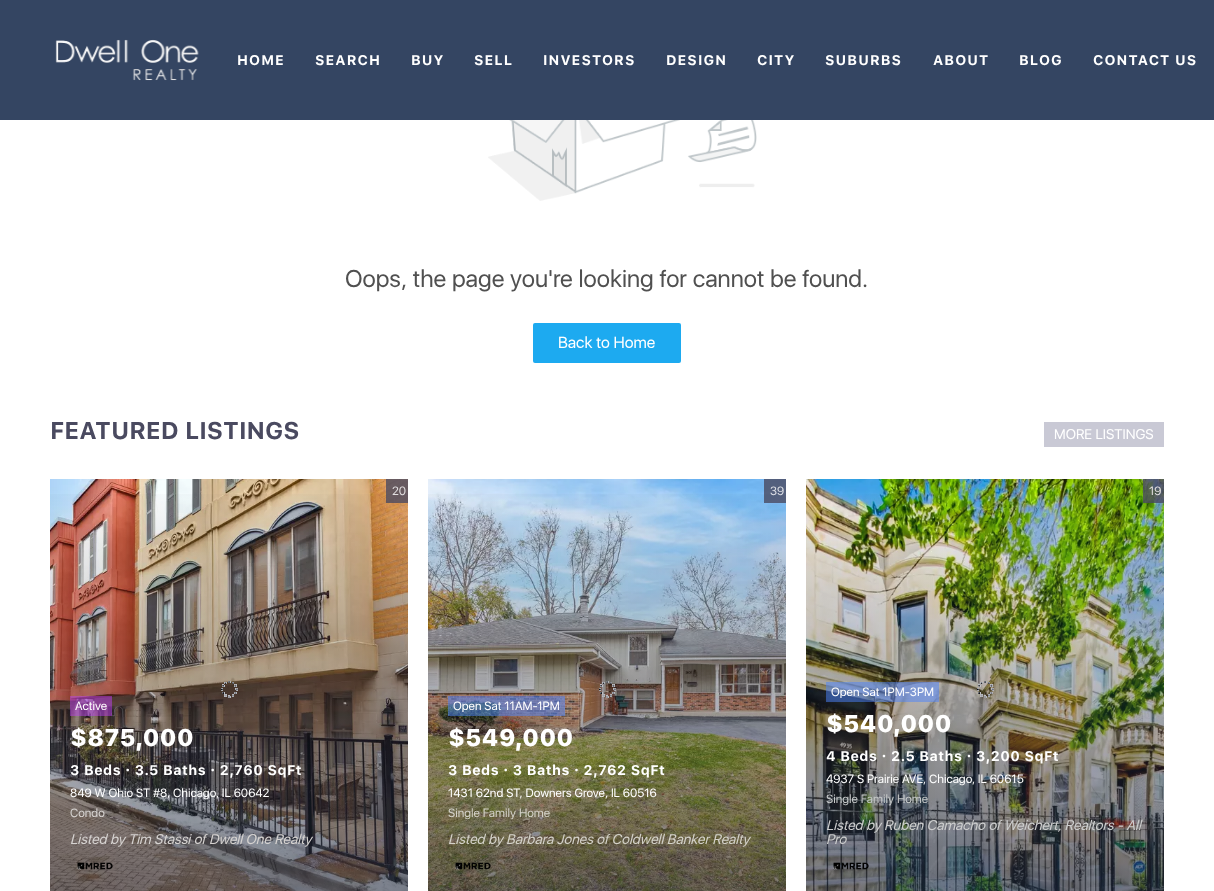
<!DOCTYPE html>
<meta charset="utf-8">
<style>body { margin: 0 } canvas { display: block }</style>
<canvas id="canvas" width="1214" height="891"></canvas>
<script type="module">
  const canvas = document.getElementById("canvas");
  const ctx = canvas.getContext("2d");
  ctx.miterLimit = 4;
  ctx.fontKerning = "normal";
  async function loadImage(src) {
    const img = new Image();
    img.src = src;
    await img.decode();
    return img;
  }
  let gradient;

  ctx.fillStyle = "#ffffff";
  ctx.fillRect(0, 0, 1214, 891);
  ctx.fillStyle = "#344562";
  ctx.fillRect(0, 0, 1214, 120);
  ctx.drawImage(await loadImage("img1.png"), 55, 39, 144, 42);
  ctx.letterSpacing = "1.1px";
  ctx.font = "bold 14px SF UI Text";
  ctx.fillStyle = "#ffffff";
  ctx.fillText("HOME", 237, 65);
  ctx.fillText("SEARCH", 315, 65);
  ctx.fillText("BUY", 411, 65);
  ctx.fillText("SELL", 474, 65);
  ctx.fillText("INVESTORS", 543, 65);
  ctx.fillText("DESIGN", 666, 65);
  ctx.fillText("CITY", 757, 65);
  ctx.fillText("SUBURBS", 825, 65);
  ctx.fillText("ABOUT", 933, 65);
  ctx.fillText("BLOG", 1019, 65);
  ctx.fillText("CONTACT US", 1093, 65);
  ctx.drawImage(await loadImage("img2.png"), 488, 120, 269, 81);
  ctx.letterSpacing = "0px";
  ctx.font = "24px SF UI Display";
  ctx.fillStyle = "#505050";
  ctx.fillText("Oops, the page you're looking for cannot be found.", 345, 287);
  ctx.fillStyle = "#1daaf0";
  ctx.beginPath();
  ctx.roundRect(533, 323, 148, 40, 2);
  ctx.fill();
  ctx.font = "16px SF UI Display";
  ctx.fillStyle = "#ffffff";
  ctx.fillText("Back to Home", 558, 348);
  ctx.font = "bold 24px SF UI Text";
  ctx.fillStyle = "#4a4a60";
  ctx.fillText("FEATURED LISTINGS", 50, 439);
  ctx.fillStyle = "#c9c9d5";
  ctx.fillRect(1044, 422, 120, 25);
  ctx.font = "14px SF UI Display";
  ctx.fillStyle = "#ffffff";
  ctx.fillText("MORE LISTINGS", 1054, 439);
  ctx.drawImage(await loadImage("img3.png"), 50, 479, 358, 412);
  ctx.drawImage(await loadImage("img4.png"), 221, 681, 17, 17);
  gradient = ctx.createLinearGradient(229, 479, 229, 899);
  gradient.addColorStop(0, "rgba(36, 42, 61, 0)");
  gradient.addColorStop(1, "rgba(36, 42, 61, 0.6)");
  gradient.addColorStop(1, "#242a3d");
  ctx.fillStyle = gradient;
  ctx.fillRect(50, 494, 358, 397);
  ctx.fillStyle = "rgba(74, 74, 96, 0.8)";
  ctx.fillRect(386, 479, 22, 24);
  ctx.font = "12px SF UI Display";
  ctx.fillStyle = "#e1dedf";
  ctx.fillText("20", 392, 495);
  ctx.fillStyle = "rgba(187, 64, 239, 0.5)";
  ctx.fillRect(70, 696, 42, 20);
  ctx.fillStyle = "#ffffff";
  ctx.fillText("Active", 75, 710);
  ctx.font = "900 24px SF UI Text";
  ctx.fillText("$875,000", 70, 746);
  ctx.letterSpacing = "0.5px";
  ctx.font = "bold 14px SF UI Text";
  ctx.fillText("3 Beds · 3.5 Baths · 2,760 SqFt", 70, 775);
  ctx.letterSpacing = "0px";
  ctx.font = "12px SF UI Display";
  ctx.fillText("849 W Ohio ST #8, Chicago, IL 60642", 70, 797);
  ctx.fillStyle = "#d6d3d1";
  ctx.fillText("Condo", 70, 817);
  ctx.font = "italic 14px SF UI Display";
  ctx.fillText("Listed by Tim Stassi of Dwell One Realty", 70, 844);
  ctx.drawImage(await loadImage("img5.png"), 77, 862, 36, 8);
  ctx.drawImage(await loadImage("img6.png"), 428, 479, 358, 412);
  ctx.drawImage(await loadImage("img7.png"), 599, 681, 17, 17);
  gradient = ctx.createLinearGradient(607, 479, 607, 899);
  gradient.addColorStop(0, "rgba(36, 42, 61, 0)");
  gradient.addColorStop(1, "rgba(36, 42, 61, 0.6)");
  gradient.addColorStop(1, "#242a3d");
  ctx.fillStyle = gradient;
  ctx.fillRect(428, 494, 358, 397);
  ctx.fillStyle = "rgba(74, 74, 96, 0.8)";
  ctx.fillRect(764, 479, 22, 24);
  ctx.font = "12px SF UI Display";
  ctx.fillStyle = "#dddfe5";
  ctx.fillText("39", 770, 495);
  ctx.fillStyle = "rgba(76, 132, 255, 0.5)";
  ctx.fillRect(448, 696, 117, 20);
  ctx.fillStyle = "#ffffff";
  ctx.fillText("Open Sat 11AM-1PM", 453, 710);
  ctx.font = "900 24px SF UI Text";
  ctx.fillText("$549,000", 448, 746);
  ctx.letterSpacing = "0.5px";
  ctx.font = "bold 14px SF UI Text";
  ctx.fillText("3 Beds · 3 Baths · 2,762 SqFt", 448, 775);
  ctx.letterSpacing = "0px";
  ctx.font = "12px SF UI Display";
  ctx.fillText("1431 62nd ST, Downers Grove, IL 60516", 448, 797);
  ctx.fillStyle = "#d4d2c9";
  ctx.fillText("Single Family Home", 448, 817);
  ctx.font = "italic 14px SF UI Display";
  ctx.fillText("Listed by Barbara Jones of Coldwell Banker Realty", 448, 844);
  ctx.drawImage(await loadImage("img8.png"), 455, 862, 36, 8);
  ctx.drawImage(await loadImage("img9.png"), 806, 479, 358, 412);
  ctx.drawImage(await loadImage("img10.png"), 977, 681, 17, 17);
  gradient = ctx.createLinearGradient(985, 479, 985, 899);
  gradient.addColorStop(0, "rgba(36, 42, 61, 0)");
  gradient.addColorStop(1, "rgba(36, 42, 61, 0.6)");
  gradient.addColorStop(1, "#242a3d");
  ctx.fillStyle = gradient;
  ctx.fillRect(806, 494, 358, 397);
  ctx.fillStyle = "rgba(74, 74, 96, 0.8)";
  ctx.fillRect(1143, 479, 21, 24);
  ctx.font = "12px SF UI Display";
  ctx.fillStyle = "#e1dedf";
  ctx.fillText("19", 1149, 495);
  ctx.fillStyle = "rgba(76, 132, 255, 0.5)";
  ctx.fillRect(826, 682, 113, 20);
  ctx.fillStyle = "#ffffff";
  ctx.fillText("Open Sat 1PM-3PM", 831, 696);
  ctx.font = "900 24px SF UI Text";
  ctx.fillText("$540,000", 826, 732);
  ctx.letterSpacing = "0.5px";
  ctx.font = "bold 14px SF UI Text";
  ctx.fillText("4 Beds · 2.5 Baths · 3,200 SqFt", 826, 761);
  ctx.letterSpacing = "0px";
  ctx.font = "12px SF UI Display";
  ctx.fillText("4937 S Prairie AVE, Chicago, IL 60615", 826, 783);
  ctx.fillStyle = "#c7caca";
  ctx.fillText("Single Family Home", 826, 803);
  ctx.font = "italic 14px SF UI Display";
  ctx.fillStyle = "#cdcece";
  ctx.fillText("Listed by Ruben Camacho of Weichert, Realtors - All", 826, 830);
  ctx.fillText("Pro", 826, 844);
  ctx.drawImage(await loadImage("img11.png"), 833, 862, 36, 8);
</script>
